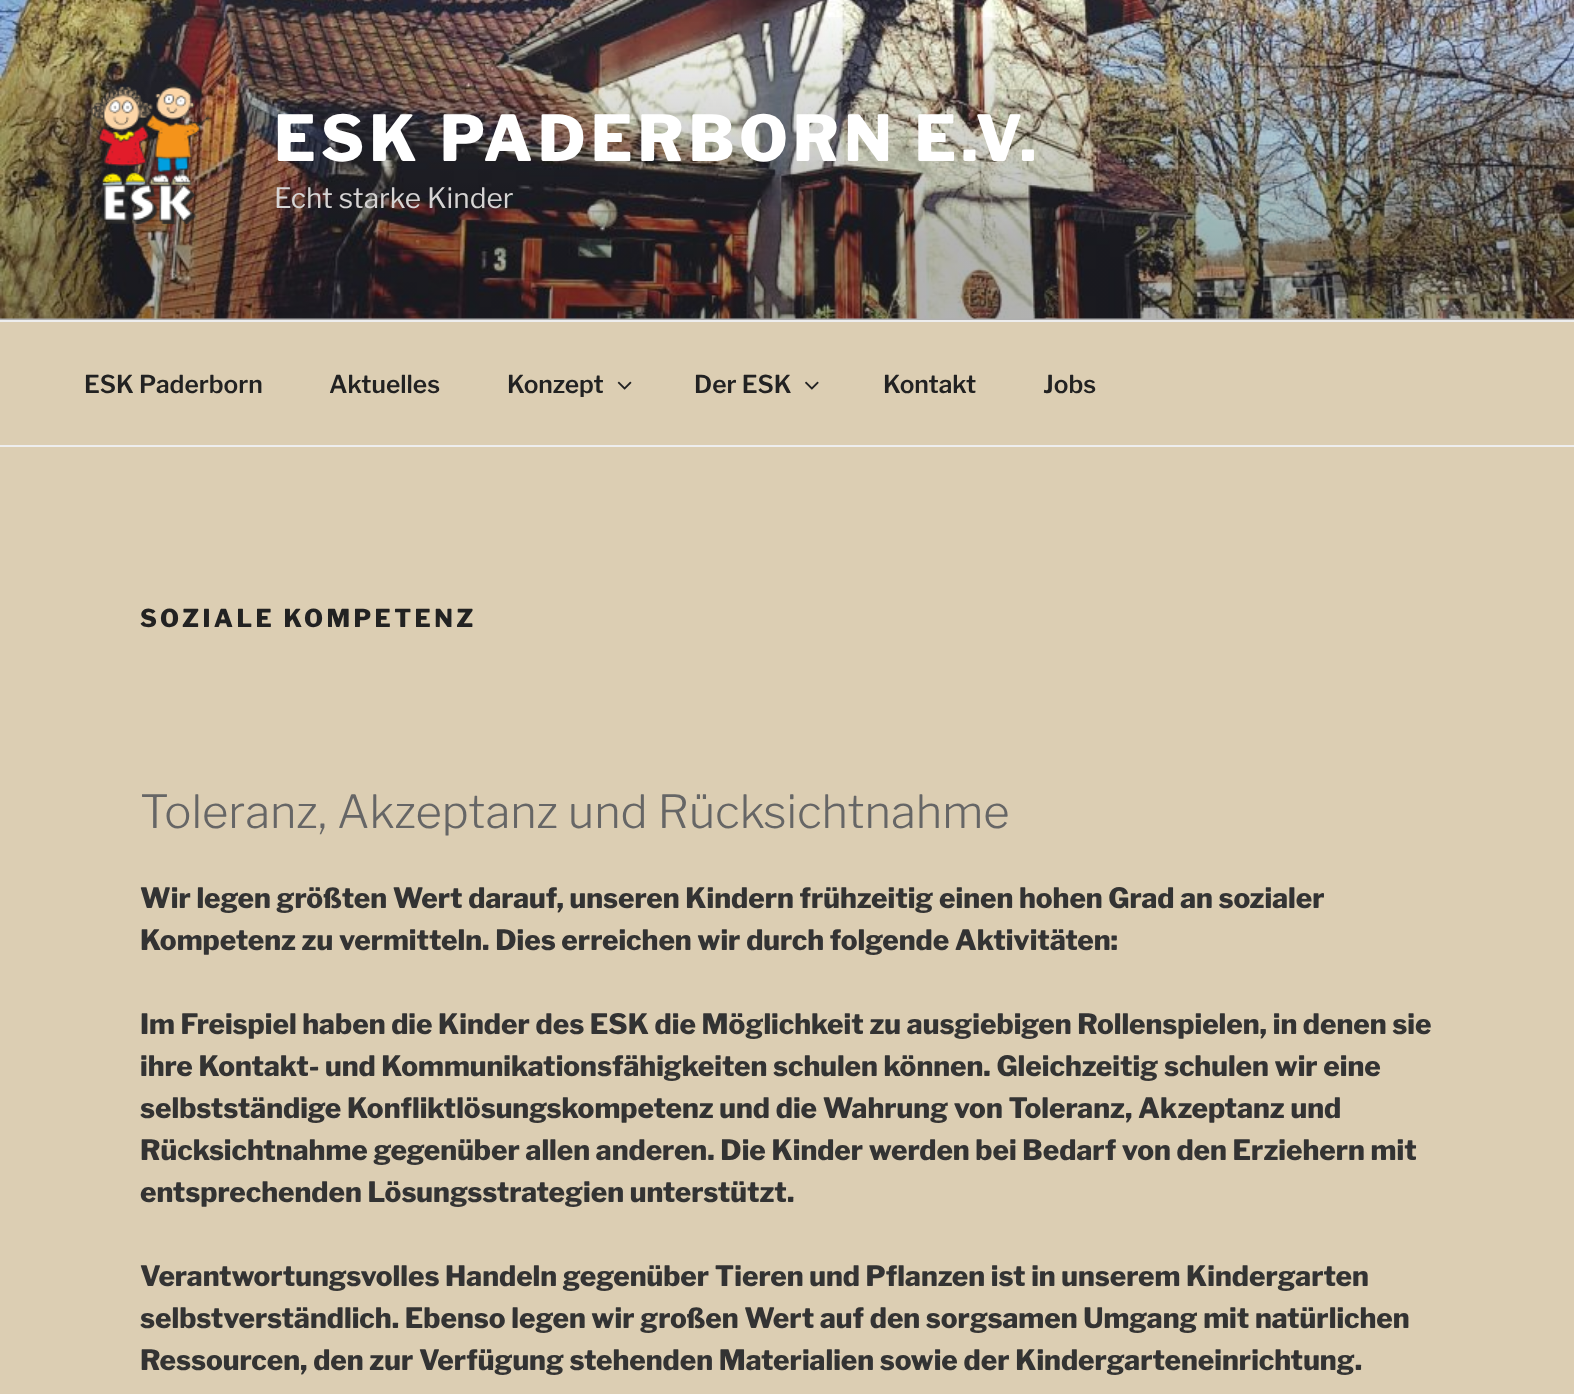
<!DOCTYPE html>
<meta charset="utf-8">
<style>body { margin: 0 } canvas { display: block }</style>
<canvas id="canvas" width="1574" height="1394"></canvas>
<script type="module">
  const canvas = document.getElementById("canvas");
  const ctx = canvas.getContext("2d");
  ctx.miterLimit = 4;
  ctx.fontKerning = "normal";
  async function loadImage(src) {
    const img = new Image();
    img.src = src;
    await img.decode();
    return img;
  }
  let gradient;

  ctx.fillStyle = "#fafafa";
  ctx.fillRect(0, 0, 1574, 1394);
  ctx.drawImage(await loadImage("img1.png"), 0, 0, 1574, 319);
  gradient = ctx.createLinearGradient(788, 0, 788, 320);
  gradient.addColorStop(0, "rgba(0, 0, 0, 0)");
  gradient.addColorStop(0.75, "rgba(0, 0, 0, 0.3)");
  gradient.addColorStop(1, "rgba(0, 0, 0, 0.3)");
  ctx.fillStyle = gradient;
  ctx.fillRect(0, 17, 1574, 303);
  ctx.drawImage(await loadImage("img2.png"), 84, 84, 128, 140);
  ctx.letterSpacing = "5px";
  ctx.font = "800 63px Libre Franklin";
  ctx.fillStyle = "#ffffff";
  ctx.fillText("ESK PADERBORN E.V.", 274, 161);
  ctx.letterSpacing = "0px";
  ctx.font = "28px Libre Franklin";
  ctx.fillStyle = "#d6d4d4";
  ctx.fillText("Echt starke Kinder", 274, 208);
  ctx.fillStyle = "#dcceb3";
  ctx.fillRect(0, 322, 1574, 123);
  ctx.fillStyle = "#eeeeee";
  ctx.fillRect(0, 320, 1574, 2);
  ctx.fillRect(0, 445, 1574, 2);
  ctx.font = "600 24.5px Libre Franklin";
  ctx.fillStyle = "#222222";
  ctx.fillText("ESK Paderborn", 84, 393);
  ctx.fillText("Aktuelles", 329, 393);
  ctx.fillText("Konzept", 507, 393);
  ctx.drawImage(await loadImage("img3.png"), 617, 381, 15, 9);
  ctx.fillText("Der ESK", 694, 393);
  ctx.drawImage(await loadImage("img4.png"), 805, 381, 14, 9);
  ctx.fillText("Kontakt", 883, 393);
  ctx.fillText("Jobs", 1043, 393);
  gradient = ctx.createLinearGradient(788, 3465, 788, 446);
  gradient.addColorStop(0, "#8db178");
  gradient.addColorStop(0.5, "#dcceb3");
  ctx.fillStyle = gradient;
  ctx.fillRect(0, 447, 1574, 947);
  ctx.letterSpacing = "3.4px";
  ctx.font = "800 24.5px Libre Franklin";
  ctx.fillStyle = "#222222";
  ctx.fillText("SOZIALE KOMPETENZ", 140, 627);
  ctx.letterSpacing = "0px";
  ctx.font = "300 45.5px Libre Franklin";
  ctx.fillStyle = "#666666";
  ctx.fillText("Toleranz, Akzeptanz und Rücksichtnahme", 140, 828);
  ctx.font = "800 28px Libre Franklin";
  ctx.fillStyle = "#333333";
  ctx.fillText("Wir legen größten Wert darauf, unseren Kindern frühzeitig einen hohen Grad an sozialer", 140, 908);
  ctx.fillText("Kompetenz zu vermitteln. Dies erreichen wir durch folgende Aktivitäten:", 140, 950);
  ctx.fillText("Im Freispiel haben die Kinder des ESK die Möglichkeit zu ausgiebigen Rollenspielen, in denen sie", 140, 1034);
  ctx.fillText("ihre Kontakt- und Kommunikationsfähigkeiten schulen können. Gleichzeitig schulen wir eine", 140, 1076);
  ctx.fillText("selbstständige Konfliktlösungskompetenz und die Wahrung von Toleranz, Akzeptanz und", 140, 1118);
  ctx.fillText("Rücksichtnahme gegenüber allen anderen. Die Kinder werden bei Bedarf von den Erziehern mit", 140, 1160);
  ctx.fillText("entsprechenden Lösungsstrategien unterstützt.", 140, 1202);
  ctx.fillText("Verantwortungsvolles Handeln gegenüber Tieren und Pflanzen ist in unserem Kindergarten", 140, 1286);
  ctx.fillText("selbstverständlich. Ebenso legen wir großen Wert auf den sorgsamen Umgang mit natürlichen", 140, 1328);
  ctx.fillText("Ressourcen, den zur Verfügung stehenden Materialien sowie der Kindergarteneinrichtung.", 140, 1370);
</script>
